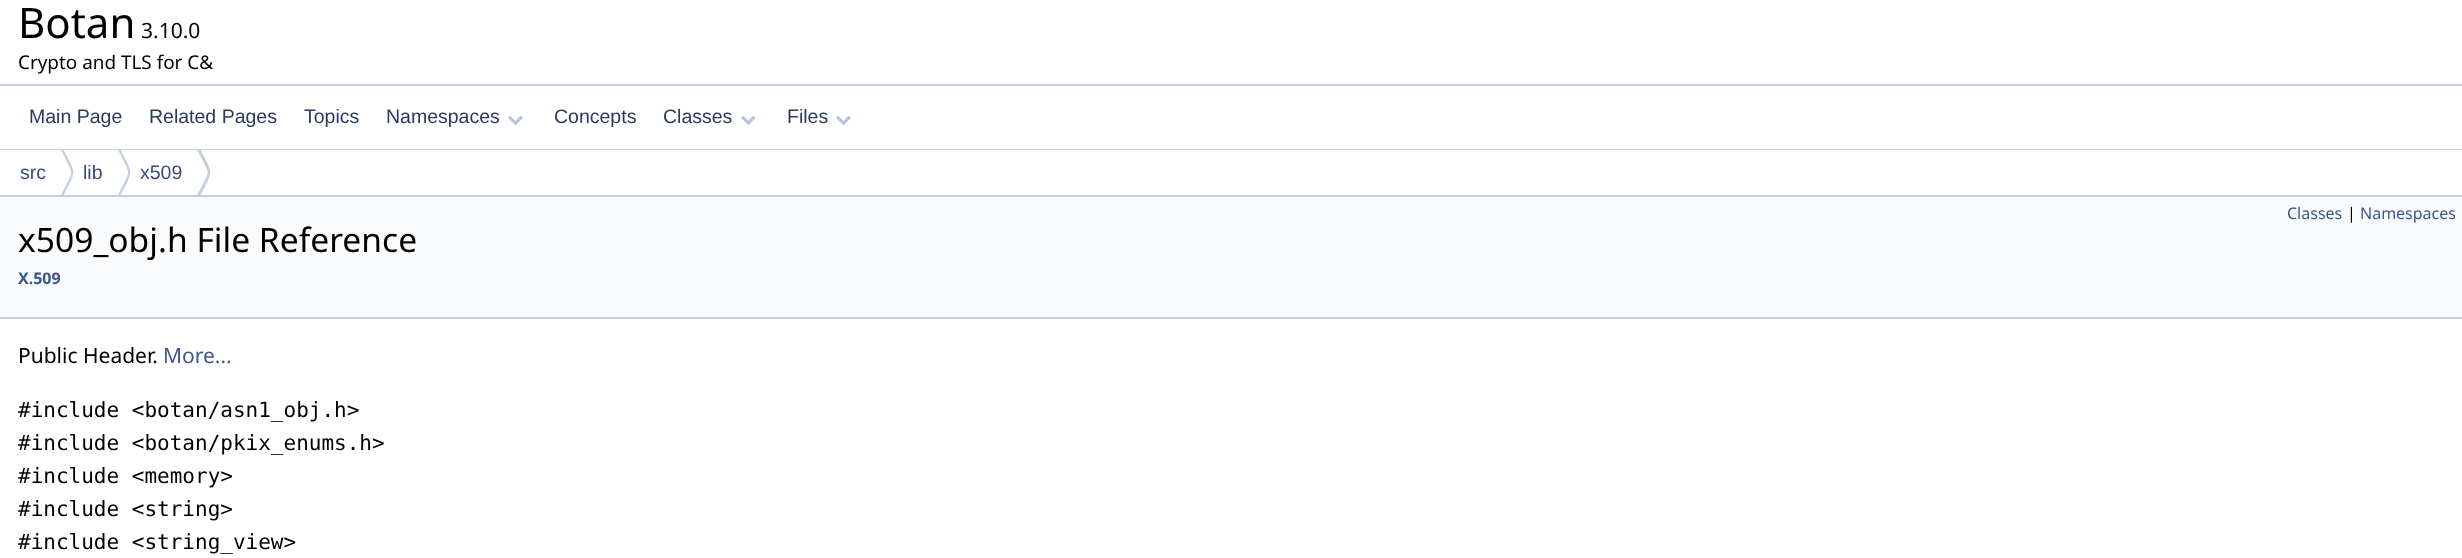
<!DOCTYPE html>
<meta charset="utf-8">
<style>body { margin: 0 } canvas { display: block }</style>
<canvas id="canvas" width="2462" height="558"></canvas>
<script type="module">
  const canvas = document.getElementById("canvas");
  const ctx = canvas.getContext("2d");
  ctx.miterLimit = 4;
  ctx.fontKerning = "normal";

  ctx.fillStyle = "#ffffff";
  ctx.fillRect(0, 0, 2462, 558);
  ctx.fillStyle = "#c4cfe5";
  ctx.fillRect(0, 84, 2462, 2);
  ctx.font = "42px Noto Sans";
  ctx.fillStyle = "#000000";
  ctx.fillText("Botan", 18, 38);
  ctx.font = "21px Noto Sans";
  ctx.fillText("3.10.0", 141, 38);
  ctx.font = "18.9px Noto Sans";
  ctx.fillText("Crypto and TLS for C&", 18, 69);
  ctx.fillStyle = "#c4cfe5";
  ctx.fillRect(0, 149, 2462, 1);
  ctx.font = "19.5px Liberation Sans";
  ctx.fillStyle = "#283a5d";
  ctx.fillText("Main Page", 29, 123);
  ctx.fillText("Related Pages", 149, 123);
  ctx.fillText("Topics", 304, 123);
  ctx.fillText("Namespaces", 386, 123);
  ctx.fillStyle = "#b6c4df";
  ctx.beginPath();
  ctx.moveTo(521, 115.5);
  ctx.lineTo(523, 118);
  ctx.lineTo(515.5, 125);
  ctx.lineTo(513.5, 123);
  ctx.closePath();
  ctx.fill();
  ctx.beginPath();
  ctx.moveTo(510, 115.5);
  ctx.lineTo(517.5, 123);
  ctx.lineTo(515.5, 125);
  ctx.lineTo(508, 118);
  ctx.closePath();
  ctx.fill();
  ctx.fillStyle = "#283a5d";
  ctx.fillText("Concepts", 554, 123);
  ctx.fillText("Classes", 663, 123);
  ctx.fillStyle = "#b6c4df";
  ctx.beginPath();
  ctx.moveTo(753.5, 115.5);
  ctx.lineTo(755.5, 118);
  ctx.lineTo(748.5, 125);
  ctx.lineTo(746, 123);
  ctx.closePath();
  ctx.fill();
  ctx.beginPath();
  ctx.moveTo(743, 115.5);
  ctx.lineTo(750.5, 123);
  ctx.lineTo(748.5, 125);
  ctx.lineTo(741, 118);
  ctx.closePath();
  ctx.fill();
  ctx.fillStyle = "#283a5d";
  ctx.fillText("Files", 787, 123);
  ctx.fillStyle = "#b6c4df";
  ctx.beginPath();
  ctx.moveTo(848.5, 115.5);
  ctx.lineTo(851, 118);
  ctx.lineTo(843.5, 125);
  ctx.lineTo(841.5, 123);
  ctx.closePath();
  ctx.fill();
  ctx.beginPath();
  ctx.moveTo(838, 115.5);
  ctx.lineTo(845.5, 123);
  ctx.lineTo(843.5, 125);
  ctx.lineTo(836, 118);
  ctx.closePath();
  ctx.fill();
  ctx.fillStyle = "#c4cfe5";
  ctx.fillRect(0, 195, 2462, 2);
  ctx.fillStyle = "#354c7b";
  ctx.fillText("src", 20, 179);
  ctx.save();
  ctx.beginPath();
  ctx.rect(0, 150, 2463, 45);
  ctx.clip();
  ctx.fillStyle = "#c4cfe5";
  ctx.beginPath();
  ctx.moveTo(62, 147);
  ctx.lineTo(61, 150);
  ctx.lineTo(71, 170);
  ctx.bezierCurveTo(71, 171, 71, 174, 71, 175);
  ctx.lineTo(61, 195);
  ctx.lineTo(62, 198);
  ctx.bezierCurveTo(77, 169, 77, 176, 62, 147);
  ctx.closePath();
  ctx.fill();
  ctx.restore();
  ctx.fillStyle = "#ffffff";
  ctx.beginPath();
  ctx.moveTo(61, 150);
  ctx.bezierCurveTo(74, 178, 74, 167, 61, 195);
  ctx.bezierCurveTo(54, 183, 54, 162, 61, 150);
  ctx.closePath();
  ctx.fill();
  ctx.fillStyle = "#354c7b";
  ctx.fillText("lib", 83, 179);
  ctx.save();
  ctx.beginPath();
  ctx.rect(0, 150, 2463, 45);
  ctx.clip();
  ctx.fillStyle = "#c4cfe5";
  ctx.beginPath();
  ctx.moveTo(119, 147);
  ctx.lineTo(117, 151);
  ctx.lineTo(118, 150);
  ctx.bezierCurveTo(131, 177, 131, 167, 118, 195);
  ctx.lineTo(119, 198);
  ctx.bezierCurveTo(134, 169, 134, 176, 119, 147);
  ctx.closePath();
  ctx.fill();
  ctx.restore();
  ctx.fillStyle = "#ffffff";
  ctx.beginPath();
  ctx.moveTo(118, 150);
  ctx.bezierCurveTo(131, 178, 131, 167, 118, 195);
  ctx.bezierCurveTo(111, 183, 111, 162, 118, 150);
  ctx.closePath();
  ctx.fill();
  ctx.fillStyle = "#354c7b";
  ctx.fillText("x509", 140, 179);
  ctx.save();
  ctx.beginPath();
  ctx.rect(0, 150, 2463, 45);
  ctx.clip();
  ctx.fillStyle = "#c4cfe5";
  ctx.beginPath();
  ctx.moveTo(199, 147);
  ctx.lineTo(197, 150);
  ctx.bezierCurveTo(211, 178, 211, 167, 197, 195);
  ctx.lineTo(199, 198);
  ctx.bezierCurveTo(214, 169, 214, 176, 199, 147);
  ctx.closePath();
  ctx.fill();
  ctx.restore();
  ctx.fillStyle = "#ffffff";
  ctx.beginPath();
  ctx.moveTo(197, 150);
  ctx.bezierCurveTo(211, 178, 211, 167, 197, 195);
  ctx.bezierCurveTo(191, 183, 191, 162, 197, 150);
  ctx.closePath();
  ctx.fill();
  ctx.fillStyle = "#f9fafc";
  ctx.fillRect(0, 197, 2462, 120);
  ctx.fillStyle = "#c4cfe5";
  ctx.fillRect(0, 317, 2462, 2);
  ctx.font = "16px Noto Sans";
  ctx.fillStyle = "#3d578c";
  ctx.fillText("Classes", 2287, 219);
  ctx.fillStyle = "#000000";
  ctx.fillText("|", 2347, 219);
  ctx.fillStyle = "#3d578c";
  ctx.fillText("Namespaces", 2360, 219);
  ctx.font = "33.6px Noto Sans";
  ctx.fillStyle = "#000000";
  ctx.fillText("x509_obj.h File Reference", 18, 252);
  ctx.font = "bold 16px Noto Sans";
  ctx.fillStyle = "#3d578c";
  ctx.fillText("X.509", 18, 284);
  ctx.font = "21px Noto Sans";
  ctx.fillStyle = "#000000";
  ctx.fillText("Public Header.", 18, 363);
  ctx.fillStyle = "#3d578c";
  ctx.fillText("More...", 163, 363);
  ctx.font = "21px DejaVu Sans Mono";
  ctx.fillStyle = "#000000";
  ctx.fillText("#include <botan/asn1_obj.h>", 18, 417);
  ctx.fillText("#include <botan/pkix_enums.h>", 18, 450);
  ctx.fillText("#include <memory>", 18, 483);
  ctx.fillText("#include <string>", 18, 516);
  ctx.fillText("#include <string_view>", 18, 549);
</script>
